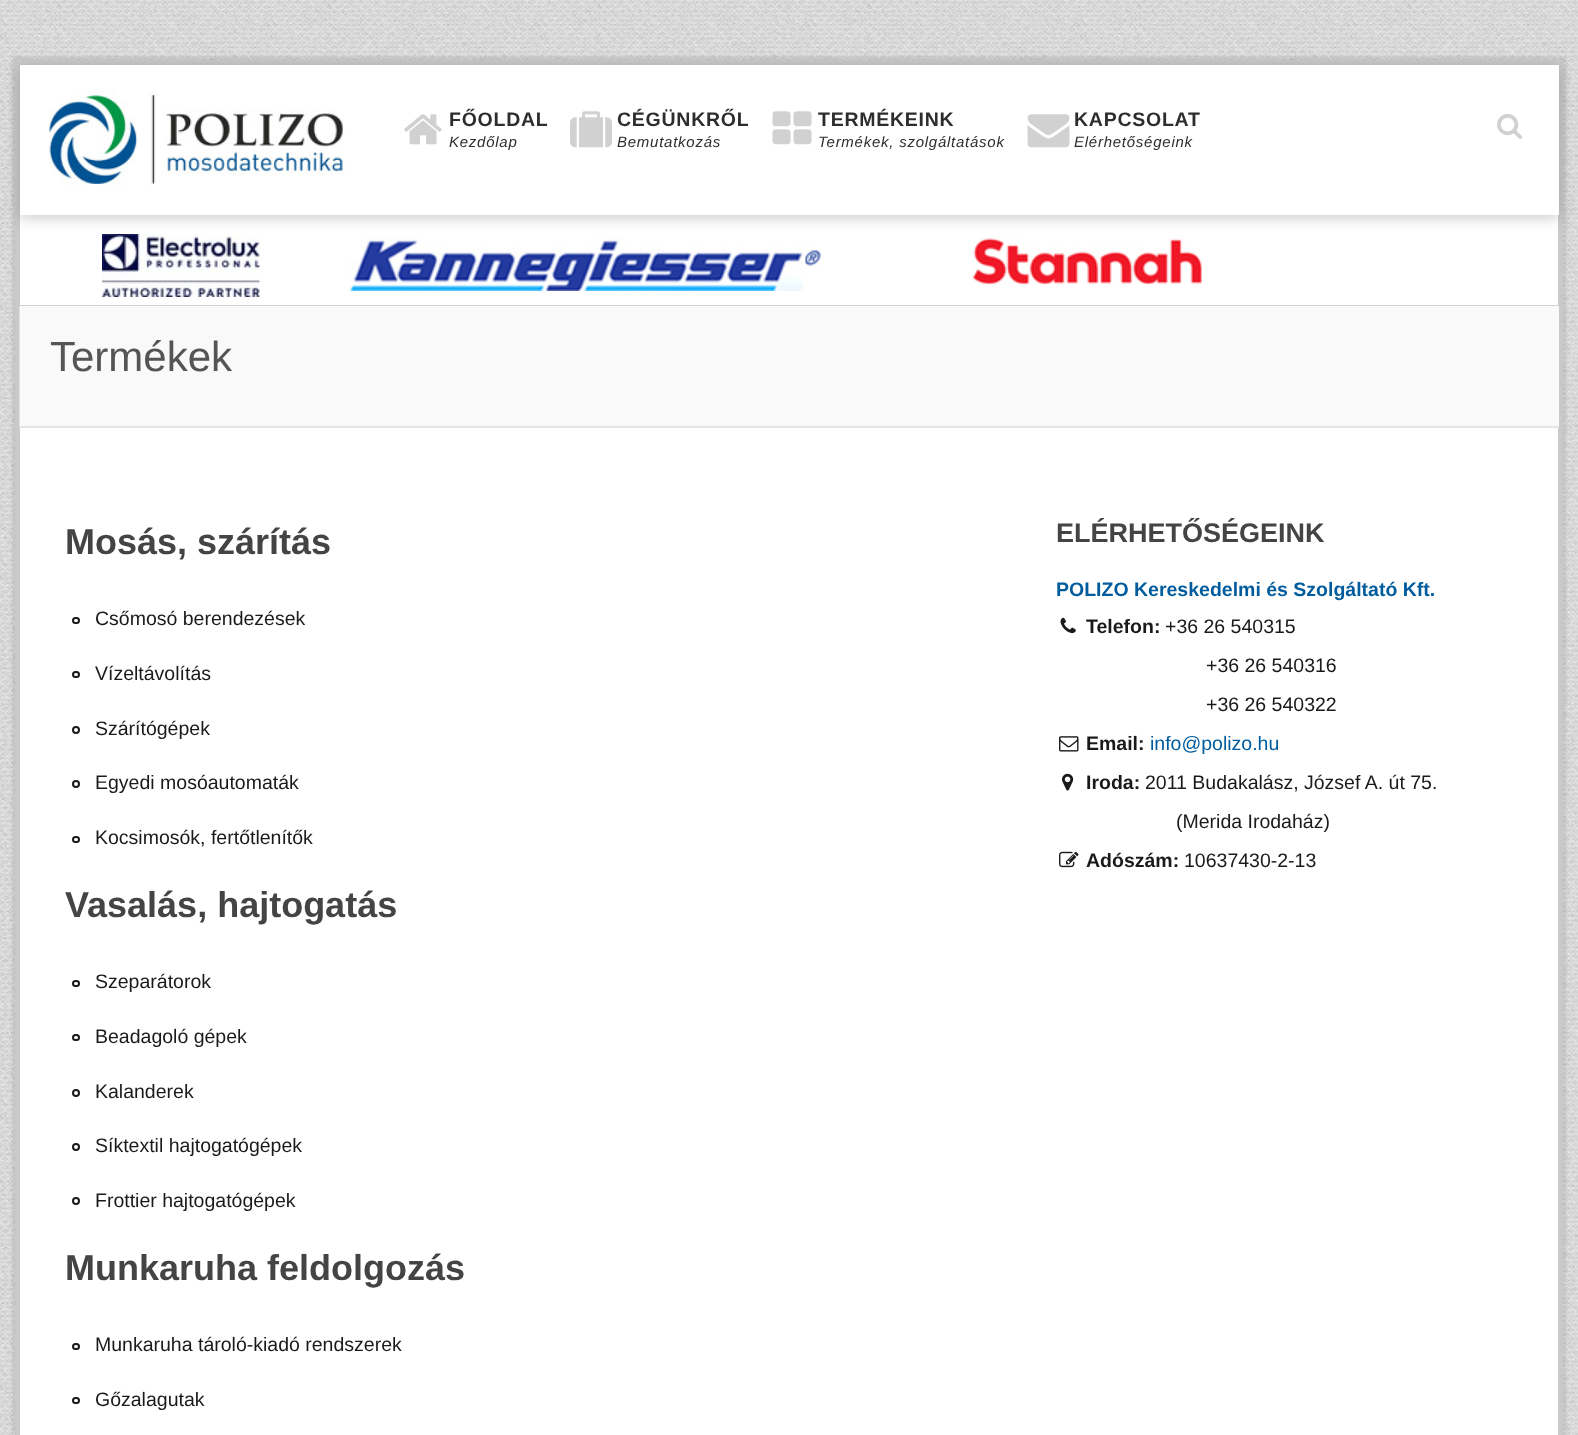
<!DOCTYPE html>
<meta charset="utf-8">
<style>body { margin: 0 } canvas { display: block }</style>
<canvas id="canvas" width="1578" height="1435"></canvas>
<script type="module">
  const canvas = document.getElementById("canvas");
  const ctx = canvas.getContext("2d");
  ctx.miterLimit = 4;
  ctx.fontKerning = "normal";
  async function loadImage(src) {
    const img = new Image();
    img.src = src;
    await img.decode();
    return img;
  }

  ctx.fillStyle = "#ffffff";
  ctx.fillRect(0, 0, 1578, 1435);
  ctx.drawImage(await loadImage("img1.png"), 0, 0, 1578, 1435);
  ctx.fillStyle = "rgba(153, 151, 153, 0.3)";
  ctx.filter = "blur(1.5px)";
  ctx.beginPath();
  ctx.rect(12, 57, 1554, 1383);
  ctx.fill();
  ctx.filter = "none";
  ctx.fillStyle = "#ffffff";
  ctx.fillRect(20, 215, 1538, 1220);
  ctx.strokeStyle = "#c9c9c9";
  ctx.lineWidth = 5;
  ctx.strokeRect(17.5, 62.5, 1543, 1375);
  ctx.drawImage(await loadImage("img8.png"), 102, 234, 158, 63);
  ctx.drawImage(await loadImage("img9.png"), 349, 236, 472, 55);
  ctx.drawImage(await loadImage("img10.png"), 972, 238, 230, 47);
  ctx.fillStyle = "rgba(0, 0, 0, 0.2)";
  ctx.filter = "blur(7px)";
  ctx.beginPath();
  ctx.rect(20, 68, 1539, 150);
  ctx.fill();
  ctx.filter = "none";
  ctx.fillStyle = "#ffffff";
  ctx.fillRect(20, 65, 1539, 150);
  ctx.drawImage(await loadImage("img2.png"), 49, 89, 296, 96);
  ctx.drawImage(await loadImage("img3.png"), 404, 114, 38, 31);
  ctx.letterSpacing = "0.75px";
  ctx.font = "bold 19.5px Liberation Sans";
  ctx.fillStyle = "#2d2d2d";
  ctx.fillText("FŐOLDAL", 449, 126);
  ctx.font = "italic 15px Liberation Sans";
  ctx.fillText("Kezdőlap", 449, 147);
  ctx.drawImage(await loadImage("img4.png"), 570, 111, 42, 37);
  ctx.font = "bold 19.5px Liberation Sans";
  ctx.fillText("CÉGÜNKRŐL", 617, 126);
  ctx.font = "italic 15px Liberation Sans";
  ctx.fillText("Bemutatkozás", 617, 147);
  ctx.drawImage(await loadImage("img5.png"), 772, 111, 40, 34);
  ctx.font = "bold 19.5px Liberation Sans";
  ctx.fillText("TERMÉKEINK", 818, 126);
  ctx.font = "italic 15px Liberation Sans";
  ctx.fillText("Termékek, szolgáltatások", 818, 147);
  ctx.drawImage(await loadImage("img6.png"), 1027, 114, 43, 34);
  ctx.font = "bold 19.5px Liberation Sans";
  ctx.fillText("KAPCSOLAT", 1074, 126);
  ctx.font = "italic 15px Liberation Sans";
  ctx.fillText("Elérhetőségeink", 1074, 147);
  ctx.drawImage(await loadImage("img7.png"), 1497, 114, 25, 25);
  ctx.fillStyle = "#d1d1d1";
  ctx.fillRect(20, 305, 1539, 1);
  ctx.fillStyle = "#f9f9f9";
  ctx.fillRect(20, 306, 1539, 120);
  ctx.drawImage(await loadImage("img11.png"), 19, 306, 1, 122);
  ctx.fillStyle = "#e5e5e5";
  ctx.fillRect(20, 426, 1539, 2);
  ctx.letterSpacing = "0px";
  ctx.font = "42px Liberation Sans";
  ctx.fillStyle = "#555555";
  ctx.fillText("Termékek", 50, 371);
  ctx.font = "bold 36px Liberation Sans";
  ctx.fillStyle = "#444444";
  ctx.fillText("Mosás, szárítás", 65, 554);
  ctx.beginPath();
  ctx.roundRect(73, 618, 6, 5, 2.5);
  ctx.strokeStyle = "#1a1a1a";
  ctx.lineWidth = 2;
  ctx.stroke();
  ctx.font = "19.5px Liberation Sans";
  ctx.fillStyle = "#1a1a1a";
  ctx.fillText("Csőmosó berendezések", 95, 625);
  ctx.beginPath();
  ctx.roundRect(73, 672, 6, 5, 2.5);
  ctx.stroke();
  ctx.fillText("Vízeltávolítás", 95, 680);
  ctx.beginPath();
  ctx.arc(76, 730, 3, 0, Math.PI * 2);
  ctx.stroke();
  ctx.fillText("Szárítógépek", 95, 735);
  ctx.beginPath();
  ctx.arc(76, 784, 3, 0, Math.PI * 2);
  ctx.stroke();
  ctx.fillText("Egyedi mosóautomaták", 95, 789);
  ctx.beginPath();
  ctx.roundRect(73, 837, 6, 5, 2.5);
  ctx.stroke();
  ctx.fillText("Kocsimosók, fertőtlenítők", 95, 844);
  ctx.font = "bold 36px Liberation Sans";
  ctx.fillStyle = "#444444";
  ctx.fillText("Vasalás, hajtogatás", 65, 917);
  ctx.beginPath();
  ctx.roundRect(73, 981, 6, 5, 2.5);
  ctx.stroke();
  ctx.font = "19.5px Liberation Sans";
  ctx.fillStyle = "#1a1a1a";
  ctx.fillText("Szeparátorok", 95, 988);
  ctx.beginPath();
  ctx.roundRect(73, 1035, 6, 5, 2.5);
  ctx.stroke();
  ctx.fillText("Beadagoló gépek", 95, 1043);
  ctx.beginPath();
  ctx.arc(76, 1093, 3, 0, Math.PI * 2);
  ctx.stroke();
  ctx.fillText("Kalanderek", 95, 1098);
  ctx.beginPath();
  ctx.arc(76, 1147, 3, 0, Math.PI * 2);
  ctx.stroke();
  ctx.fillText("Síktextil hajtogatógépek", 95, 1152);
  ctx.beginPath();
  ctx.arc(76, 1201, 3, 0, Math.PI * 2);
  ctx.stroke();
  ctx.fillText("Frottier hajtogatógépek", 95, 1207);
  ctx.font = "bold 36px Liberation Sans";
  ctx.fillStyle = "#444444";
  ctx.fillText("Munkaruha feldolgozás", 65, 1280);
  ctx.beginPath();
  ctx.roundRect(73, 1344, 6, 5, 2.5);
  ctx.stroke();
  ctx.font = "19.5px Liberation Sans";
  ctx.fillStyle = "#1a1a1a";
  ctx.fillText("Munkaruha tároló-kiadó rendszerek", 95, 1351);
  ctx.beginPath();
  ctx.roundRect(73, 1398, 6, 5, 2.5);
  ctx.stroke();
  ctx.fillText("Gőzalagutak", 95, 1406);
  ctx.font = "bold 27px Liberation Sans";
  ctx.fillStyle = "#444444";
  ctx.fillText("ELÉRHETŐSÉGEINK", 1056, 542);
  ctx.font = "bold 19.5px Liberation Sans";
  ctx.fillStyle = "#005c9d";
  ctx.fillText("POLIZO Kereskedelmi és Szolgáltató Kft.", 1056, 596);
  ctx.drawImage(await loadImage("img12.png"), 1060, 617, 16, 17);
  ctx.fillStyle = "#1a1a1a";
  ctx.fillText("Telefon:", 1086, 633);
  ctx.font = "19.5px Liberation Sans";
  ctx.fillText("+36 26 540315", 1165, 633);
  ctx.fillText("+36 26 540316", 1206, 672);
  ctx.fillText("+36 26 540322", 1206, 711);
  ctx.drawImage(await loadImage("img13.png"), 1059, 736, 20, 16);
  ctx.font = "bold 19.5px Liberation Sans";
  ctx.fillText("Email:", 1086, 750);
  ctx.font = "19.5px Liberation Sans";
  ctx.fillStyle = "#005c9d";
  ctx.fillText("info@polizo.hu", 1150, 750);
  ctx.drawImage(await loadImage("img14.png"), 1062, 773, 12, 18);
  ctx.font = "bold 19.5px Liberation Sans";
  ctx.fillStyle = "#1a1a1a";
  ctx.fillText("Iroda:", 1086, 789);
  ctx.font = "19.5px Liberation Sans";
  ctx.fillText("2011 Budakalász, József A. út 75.", 1145, 789);
  ctx.fillText("(Merida Irodaház)", 1176, 828);
  ctx.drawImage(await loadImage("img15.png"), 1059, 851, 20, 17);
  ctx.font = "bold 19.5px Liberation Sans";
  ctx.fillText("Adószám:", 1086, 867);
  ctx.font = "19.5px Liberation Sans";
  ctx.fillText("10637430-2-13", 1184, 867);
</script>
